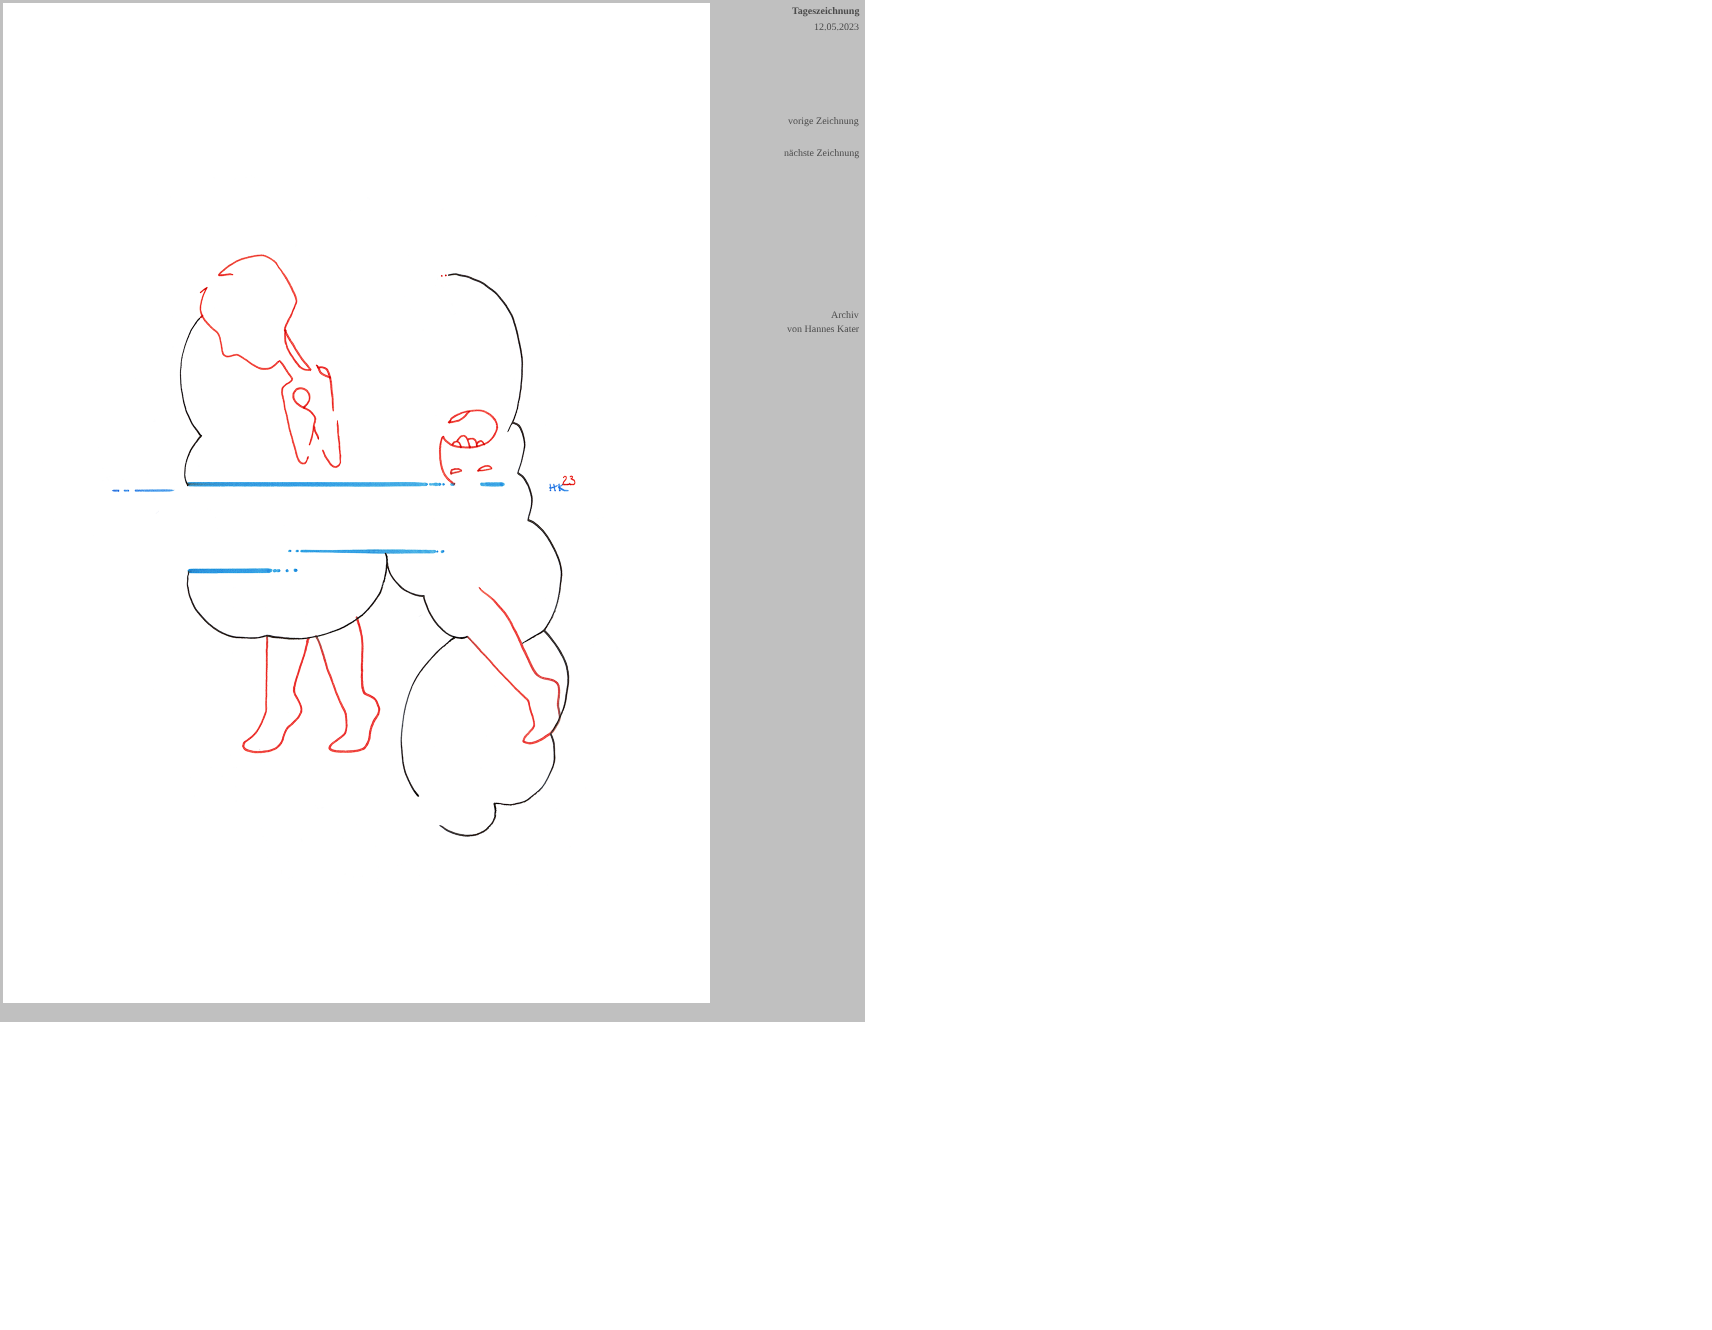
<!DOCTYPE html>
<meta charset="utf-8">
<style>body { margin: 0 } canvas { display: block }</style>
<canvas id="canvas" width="1712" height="1330"></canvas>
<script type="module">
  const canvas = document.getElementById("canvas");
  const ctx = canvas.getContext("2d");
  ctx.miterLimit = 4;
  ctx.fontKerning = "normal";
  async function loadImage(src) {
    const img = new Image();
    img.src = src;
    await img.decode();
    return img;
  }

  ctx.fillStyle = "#ffffff";
  ctx.fillRect(0, 0, 1712, 1330);
  ctx.fillStyle = "#c0c0c0";
  ctx.fillRect(0, 0, 865, 1006);
  ctx.drawImage(await loadImage("img1.png"), 3, 3, 707, 1000);
  ctx.font = "bold 10px Liberation Serif";
  ctx.fillStyle = "#4c4c4c";
  ctx.fillText("Tageszeichnung", 792, 14);
  ctx.font = "10px Liberation Serif";
  ctx.fillText("12.05.2023", 814, 30);
  ctx.fillText("vorige Zeichnung", 788, 124);
  ctx.fillText("nächste Zeichnung", 784, 156);
  ctx.fillText("Archiv", 831, 318);
  ctx.fillText("von Hannes Kater", 787, 332);
  ctx.fillStyle = "#c0c0c0";
  ctx.fillRect(0, 1006, 865, 16);
</script>
